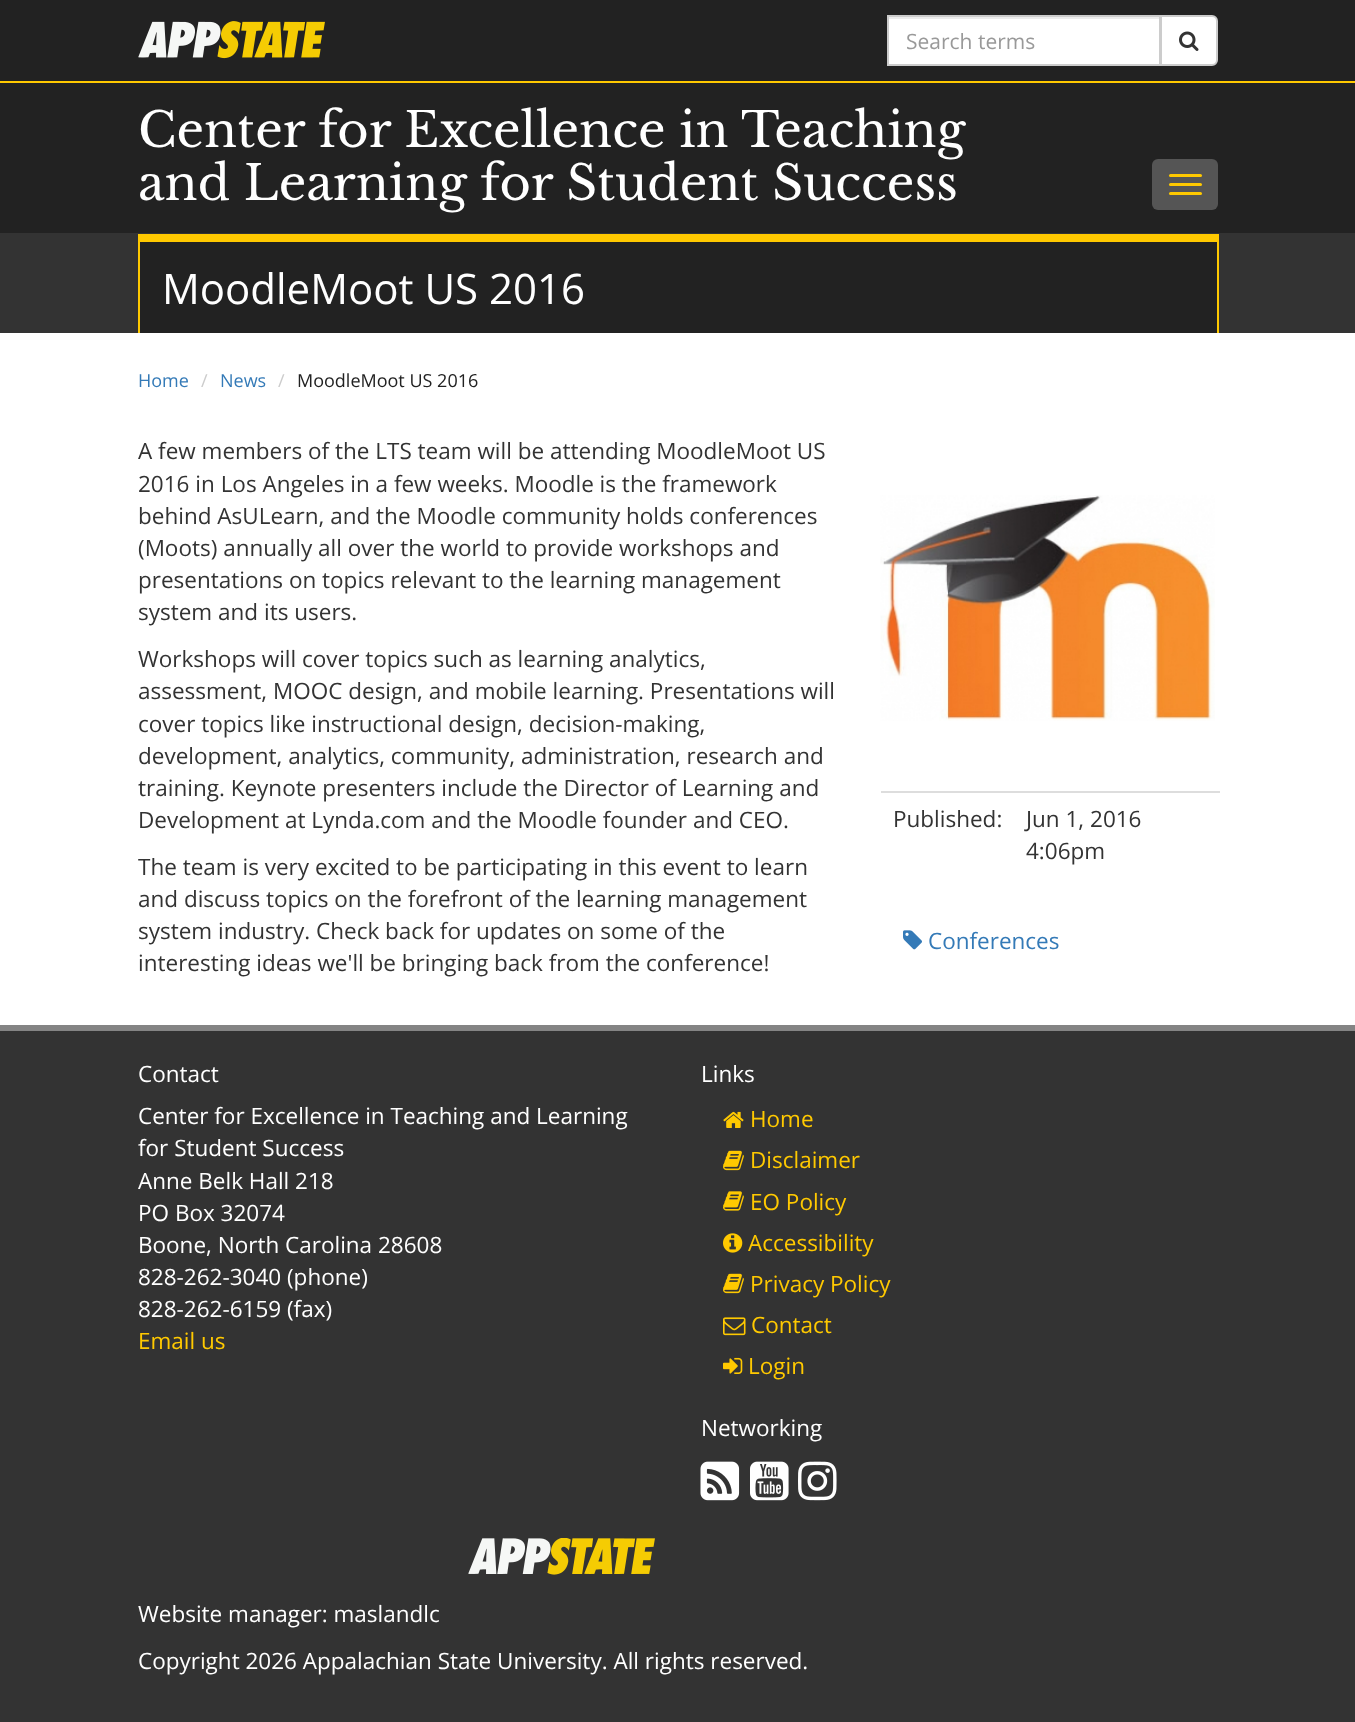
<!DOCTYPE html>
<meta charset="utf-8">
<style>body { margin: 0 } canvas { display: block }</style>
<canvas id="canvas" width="1355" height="1722"></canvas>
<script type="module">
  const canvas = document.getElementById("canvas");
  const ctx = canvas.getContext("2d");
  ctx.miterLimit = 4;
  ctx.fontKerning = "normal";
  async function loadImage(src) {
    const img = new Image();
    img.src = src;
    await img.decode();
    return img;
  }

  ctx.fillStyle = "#333333";
  ctx.fillRect(0, 0, 1355, 1722);
  ctx.fillStyle = "#222222";
  ctx.fillRect(0, 0, 1355, 81);
  ctx.fillStyle = "#ffc900";
  ctx.fillRect(0, 81, 1355, 2);
  ctx.drawImage(await loadImage("img1.png"), 138, 21, 187, 38);
  ctx.fillStyle = "#ffffff";
  ctx.fillRect(889, 19, 270, 45);
  ctx.fillStyle = "#ececec";
  ctx.fillRect(888, 17, 272, 2);
  ctx.strokeStyle = "#cccccc";
  ctx.lineWidth = 2;
  ctx.strokeRect(888, 16, 272, 49);
  ctx.font = "21px Open Sans";
  ctx.fillStyle = "#999999";
  ctx.fillText("Search terms", 906, 49);
  ctx.fillStyle = "#ffffff";
  ctx.beginPath();
  ctx.roundRect(1161, 16, 56, 49, [0, 5, 5, 0]);
  ctx.fill();
  ctx.stroke();
  ctx.drawImage(await loadImage("img2.png"), 1179, 31, 20, 20);
  ctx.fillStyle = "#222222";
  ctx.fillRect(0, 83, 1355, 150);
  ctx.font = "48px Libre Baskerville";
  ctx.fillStyle = "#ffffff";
  ctx.fillText("Center for Excellence in Teaching", 138, 147);
  ctx.fillText("and Learning for Student Success", 138, 200);
  ctx.fillStyle = "#555555";
  ctx.beginPath();
  ctx.roundRect(1152, 159, 66, 51, 6);
  ctx.fill();
  ctx.fillStyle = "#ffc900";
  ctx.beginPath();
  ctx.roundRect(1169, 174, 33, 3, 1.5);
  ctx.fill();
  ctx.beginPath();
  ctx.roundRect(1169, 183, 33, 3, 1.5);
  ctx.fill();
  ctx.beginPath();
  ctx.roundRect(1169, 192, 33, 3, 1.5);
  ctx.fill();
  ctx.fillStyle = "#222222";
  ctx.fillRect(140, 242, 1077, 91);
  ctx.fillStyle = "#ffc900";
  ctx.fillRect(138, 234, 1080, 8);
  ctx.fillRect(1217, 234, 2, 99);
  ctx.fillRect(138, 234, 2, 99);
  ctx.font = "42px Open Sans";
  ctx.fillStyle = "#ffffff";
  ctx.fillText("MoodleMoot US 2016", 162, 304);
  ctx.fillRect(0, 333, 1355, 692);
  ctx.font = "18px Open Sans";
  ctx.fillStyle = "#347ab7";
  ctx.fillText("Home", 138, 387);
  ctx.fillStyle = "#cccccc";
  ctx.fillText("/", 201, 387);
  ctx.fillStyle = "#347ab7";
  ctx.fillText("News", 220, 387);
  ctx.fillStyle = "#cccccc";
  ctx.fillText("/", 278, 387);
  ctx.fillStyle = "#222222";
  ctx.fillText("MoodleMoot US 2016", 297, 387);
  ctx.font = "22.5px Open Sans";
  ctx.fillStyle = "#333333";
  ctx.fillText("A few members of the LTS team will be attending MoodleMoot US", 138, 459);
  ctx.fillText("2016 in Los Angeles in a few weeks. Moodle is the framework", 138, 492);
  ctx.fillText("behind AsULearn, and the Moodle community holds conferences", 138, 524);
  ctx.fillText("(Moots) annually all over the world to provide workshops and", 138, 556);
  ctx.fillText("presentations on topics relevant to the learning management", 138, 588);
  ctx.fillText("system and its users.", 138, 620);
  ctx.fillText("Workshops will cover topics such as learning analytics,", 138, 667);
  ctx.fillText("assessment, MOOC design, and mobile learning. Presentations will", 138, 699);
  ctx.fillText("cover topics like instructional design, decision-making,", 138, 732);
  ctx.fillText("development, analytics, community, administration, research and", 138, 764);
  ctx.fillText("training. Keynote presenters include the Director of Learning and", 138, 796);
  ctx.fillText("Development at Lynda.com and the Moodle founder and CEO.", 138, 828);
  ctx.fillText("The team is very excited to be participating in this event to learn", 138, 875);
  ctx.fillText("and discuss topics on the forefront of the learning management", 138, 907);
  ctx.fillText("system industry. Check back for updates on some of the", 138, 939);
  ctx.fillText("interesting ideas we'll be bringing back from the conference!", 138, 971);
  ctx.drawImage(await loadImage("img3.png"), 880, 495, 335, 226);
  ctx.fillText("Published:", 893, 827);
  ctx.fillStyle = "#dddddd";
  ctx.fillRect(881, 791, 339, 2);
  ctx.fillStyle = "#333333";
  ctx.fillText("Jun 1, 2016", 1026, 827);
  ctx.fillText("4:06pm", 1026, 859);
  ctx.drawImage(await loadImage("img4.png"), 903, 930, 19, 20);
  ctx.fillStyle = "#347ab7";
  ctx.fillText("Conferences", 928, 949);
  ctx.fillStyle = "#848484";
  ctx.fillRect(0, 1025, 1355, 6);
  ctx.fillStyle = "#ffffff";
  ctx.fillText("Contact", 138, 1082);
  ctx.fillText("Center for Excellence in Teaching and Learning", 138, 1124);
  ctx.fillText("for Student Success", 138, 1156);
  ctx.fillText("Anne Belk Hall 218", 138, 1189);
  ctx.fillText("PO Box 32074", 138, 1221);
  ctx.fillText("Boone, North Carolina 28608", 138, 1253);
  ctx.fillText("828-262-3040 (phone)", 138, 1285);
  ctx.fillText("828-262-6159 (fax)", 138, 1317);
  ctx.fillStyle = "#ffc900";
  ctx.fillText("Email us", 138, 1349);
  ctx.fillStyle = "#ffffff";
  ctx.fillText("Links", 701, 1082);
  ctx.drawImage(await loadImage("img5.png"), 723, 1111, 21, 17);
  ctx.fillStyle = "#ffc900";
  ctx.fillText("Home", 750, 1127);
  ctx.drawImage(await loadImage("img6.png"), 723, 1150, 21, 21);
  ctx.fillText("Disclaimer", 750, 1168);
  ctx.drawImage(await loadImage("img7.png"), 723, 1191, 21, 20);
  ctx.fillText("EO Policy", 750, 1210);
  ctx.drawImage(await loadImage("img8.png"), 723, 1233, 20, 20);
  ctx.fillText("Accessibility", 748, 1251);
  ctx.drawImage(await loadImage("img6.png"), 723, 1273, 21, 21);
  ctx.fillText("Privacy Policy", 750, 1292);
  ctx.drawImage(await loadImage("img9.png"), 723, 1317, 23, 19);
  ctx.fillText("Contact", 751, 1333);
  ctx.drawImage(await loadImage("img10.png"), 723, 1357, 20, 17);
  ctx.fillText("Login", 748, 1374);
  ctx.fillStyle = "#ffffff";
  ctx.fillText("Networking", 701, 1436);
  ctx.drawImage(await loadImage("img11.png"), 700, 1461, 40, 40);
  ctx.drawImage(await loadImage("img12.png"), 750, 1461, 39, 40);
  ctx.drawImage(await loadImage("img13.png"), 798, 1461, 39, 40);
  ctx.drawImage(await loadImage("img14.png"), 468, 1538, 187, 37);
  ctx.fillText("Website manager: maslandlc", 138, 1622);
  ctx.fillText("Copyright 2026 Appalachian State University. All rights reserved.", 138, 1669);
</script>
